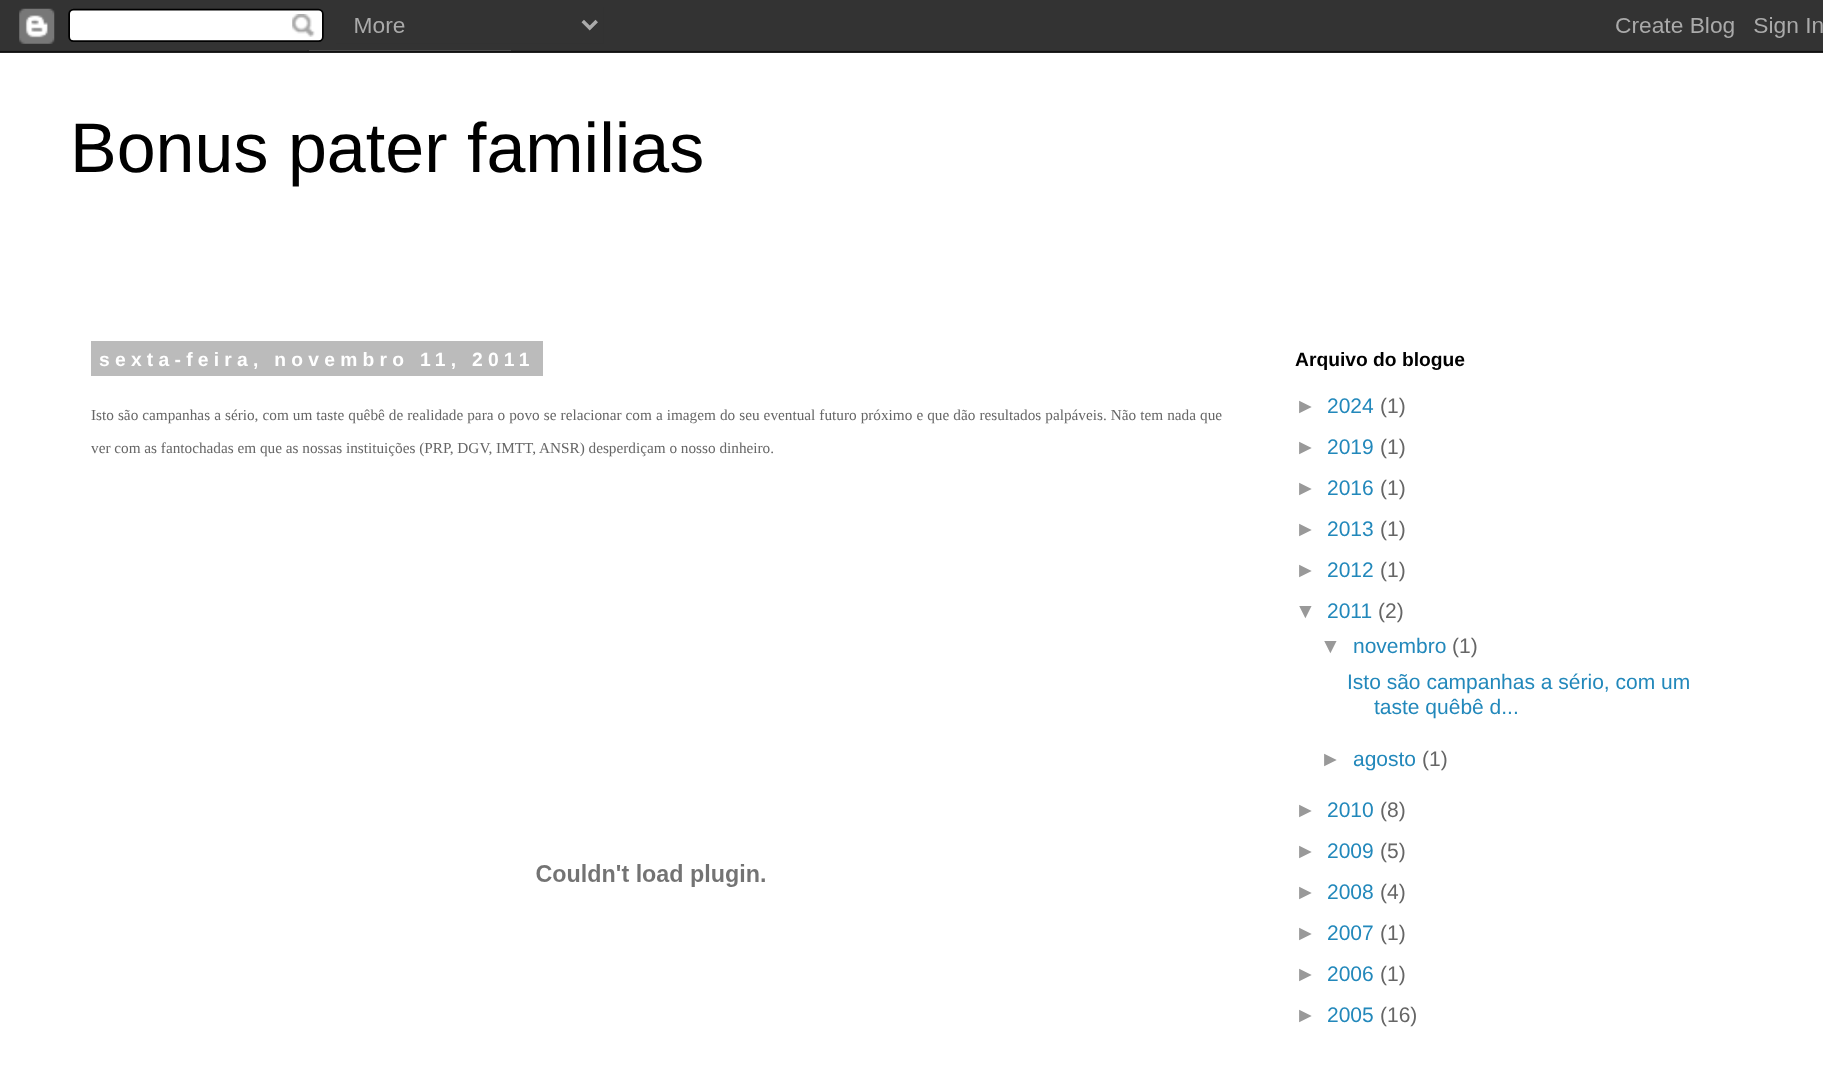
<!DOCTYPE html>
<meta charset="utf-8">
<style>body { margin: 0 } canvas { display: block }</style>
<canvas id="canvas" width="1823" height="1091"></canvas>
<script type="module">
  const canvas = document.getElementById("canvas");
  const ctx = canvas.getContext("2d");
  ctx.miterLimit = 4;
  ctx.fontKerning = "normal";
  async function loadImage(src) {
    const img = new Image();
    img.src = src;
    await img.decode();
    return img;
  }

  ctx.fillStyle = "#ffffff";
  ctx.fillRect(0, 0, 1823, 1091);
  ctx.drawImage(await loadImage("img1.png"), 0, 0, 1823, 53);
  ctx.font = "70px Liberation Sans";
  ctx.fillStyle = "#000000";
  ctx.fillText("Bonus pater familias", 70, 172);
  ctx.fillStyle = "#bbbbbb";
  ctx.fillRect(91, 341, 452, 35);
  ctx.letterSpacing = "5.25px";
  ctx.font = "bold 19.25px Liberation Sans";
  ctx.fillStyle = "#ffffff";
  ctx.fillText("sexta-feira, novembro 11, 2011", 99, 366);
  ctx.letterSpacing = "0px";
  ctx.wordSpacing = "0.25px";
  ctx.font = "15.25px Liberation Serif";
  ctx.fillStyle = "#666666";
  ctx.fillText("Isto são campanhas a sério, com um taste quêbê de realidade para o povo se relacionar com a imagem do seu eventual futuro próximo e que dão resultados palpáveis. Não tem nada que", 91, 420);
  ctx.wordSpacing = "0px";
  ctx.fillText("ver com as fantochadas em que as nossas instituições (PRP, DGV, IMTT, ANSR) desperdiçam o nosso dinheiro.", 91, 453);
  ctx.drawImage(await loadImage("img2.png"), 536, 864, 229, 23);
  ctx.font = "bold 19.25px Liberation Sans";
  ctx.fillStyle = "#000000";
  ctx.fillText("Arquivo do blogue", 1295, 366);
  ctx.font = "21px Liberation Sans";
  ctx.fillStyle = "#999999";
  ctx.fillText("►", 1295, 413);
  ctx.fillStyle = "#2288bb";
  ctx.fillText("2024", 1327, 413);
  ctx.fillStyle = "#666666";
  ctx.fillText("(1)", 1380, 413);
  ctx.fillStyle = "#999999";
  ctx.fillText("►", 1295, 454);
  ctx.fillStyle = "#2288bb";
  ctx.fillText("2019", 1327, 454);
  ctx.fillStyle = "#666666";
  ctx.fillText("(1)", 1380, 454);
  ctx.fillStyle = "#999999";
  ctx.fillText("►", 1295, 495);
  ctx.fillStyle = "#2288bb";
  ctx.fillText("2016", 1327, 495);
  ctx.fillStyle = "#666666";
  ctx.fillText("(1)", 1380, 495);
  ctx.fillStyle = "#999999";
  ctx.fillText("►", 1295, 536);
  ctx.fillStyle = "#2288bb";
  ctx.fillText("2013", 1327, 536);
  ctx.fillStyle = "#666666";
  ctx.fillText("(1)", 1380, 536);
  ctx.fillStyle = "#999999";
  ctx.fillText("►", 1295, 577);
  ctx.fillStyle = "#2288bb";
  ctx.fillText("2012", 1327, 577);
  ctx.fillStyle = "#666666";
  ctx.fillText("(1)", 1380, 577);
  ctx.fillStyle = "#999999";
  ctx.fillText("▼", 1295, 618);
  ctx.fillStyle = "#2288bb";
  ctx.fillText("2011", 1327, 618);
  ctx.fillStyle = "#666666";
  ctx.fillText("(2)", 1378, 618);
  ctx.fillStyle = "#999999";
  ctx.fillText("▼", 1320, 653);
  ctx.fillStyle = "#2288bb";
  ctx.fillText("novembro", 1353, 653);
  ctx.fillStyle = "#666666";
  ctx.fillText("(1)", 1452, 653);
  ctx.fillStyle = "#2288bb";
  ctx.fillText("Isto são campanhas a sério, com um", 1347, 689);
  ctx.fillText("taste quêbê d...", 1374, 714);
  ctx.fillStyle = "#999999";
  ctx.fillText("►", 1320, 766);
  ctx.fillStyle = "#2288bb";
  ctx.fillText("agosto", 1353, 766);
  ctx.fillStyle = "#666666";
  ctx.fillText("(1)", 1422, 766);
  ctx.fillStyle = "#999999";
  ctx.fillText("►", 1295, 817);
  ctx.fillStyle = "#2288bb";
  ctx.fillText("2010", 1327, 817);
  ctx.fillStyle = "#666666";
  ctx.fillText("(8)", 1380, 817);
  ctx.fillStyle = "#999999";
  ctx.fillText("►", 1295, 858);
  ctx.fillStyle = "#2288bb";
  ctx.fillText("2009", 1327, 858);
  ctx.fillStyle = "#666666";
  ctx.fillText("(5)", 1380, 858);
  ctx.fillStyle = "#999999";
  ctx.fillText("►", 1295, 899);
  ctx.fillStyle = "#2288bb";
  ctx.fillText("2008", 1327, 899);
  ctx.fillStyle = "#666666";
  ctx.fillText("(4)", 1380, 899);
  ctx.fillStyle = "#999999";
  ctx.fillText("►", 1295, 940);
  ctx.fillStyle = "#2288bb";
  ctx.fillText("2007", 1327, 940);
  ctx.fillStyle = "#666666";
  ctx.fillText("(1)", 1380, 940);
  ctx.fillStyle = "#999999";
  ctx.fillText("►", 1295, 981);
  ctx.fillStyle = "#2288bb";
  ctx.fillText("2006", 1327, 981);
  ctx.fillStyle = "#666666";
  ctx.fillText("(1)", 1380, 981);
  ctx.fillStyle = "#999999";
  ctx.fillText("►", 1295, 1022);
  ctx.fillStyle = "#2288bb";
  ctx.fillText("2005", 1327, 1022);
  ctx.fillStyle = "#666666";
  ctx.fillText("(16)", 1380, 1022);
</script>
